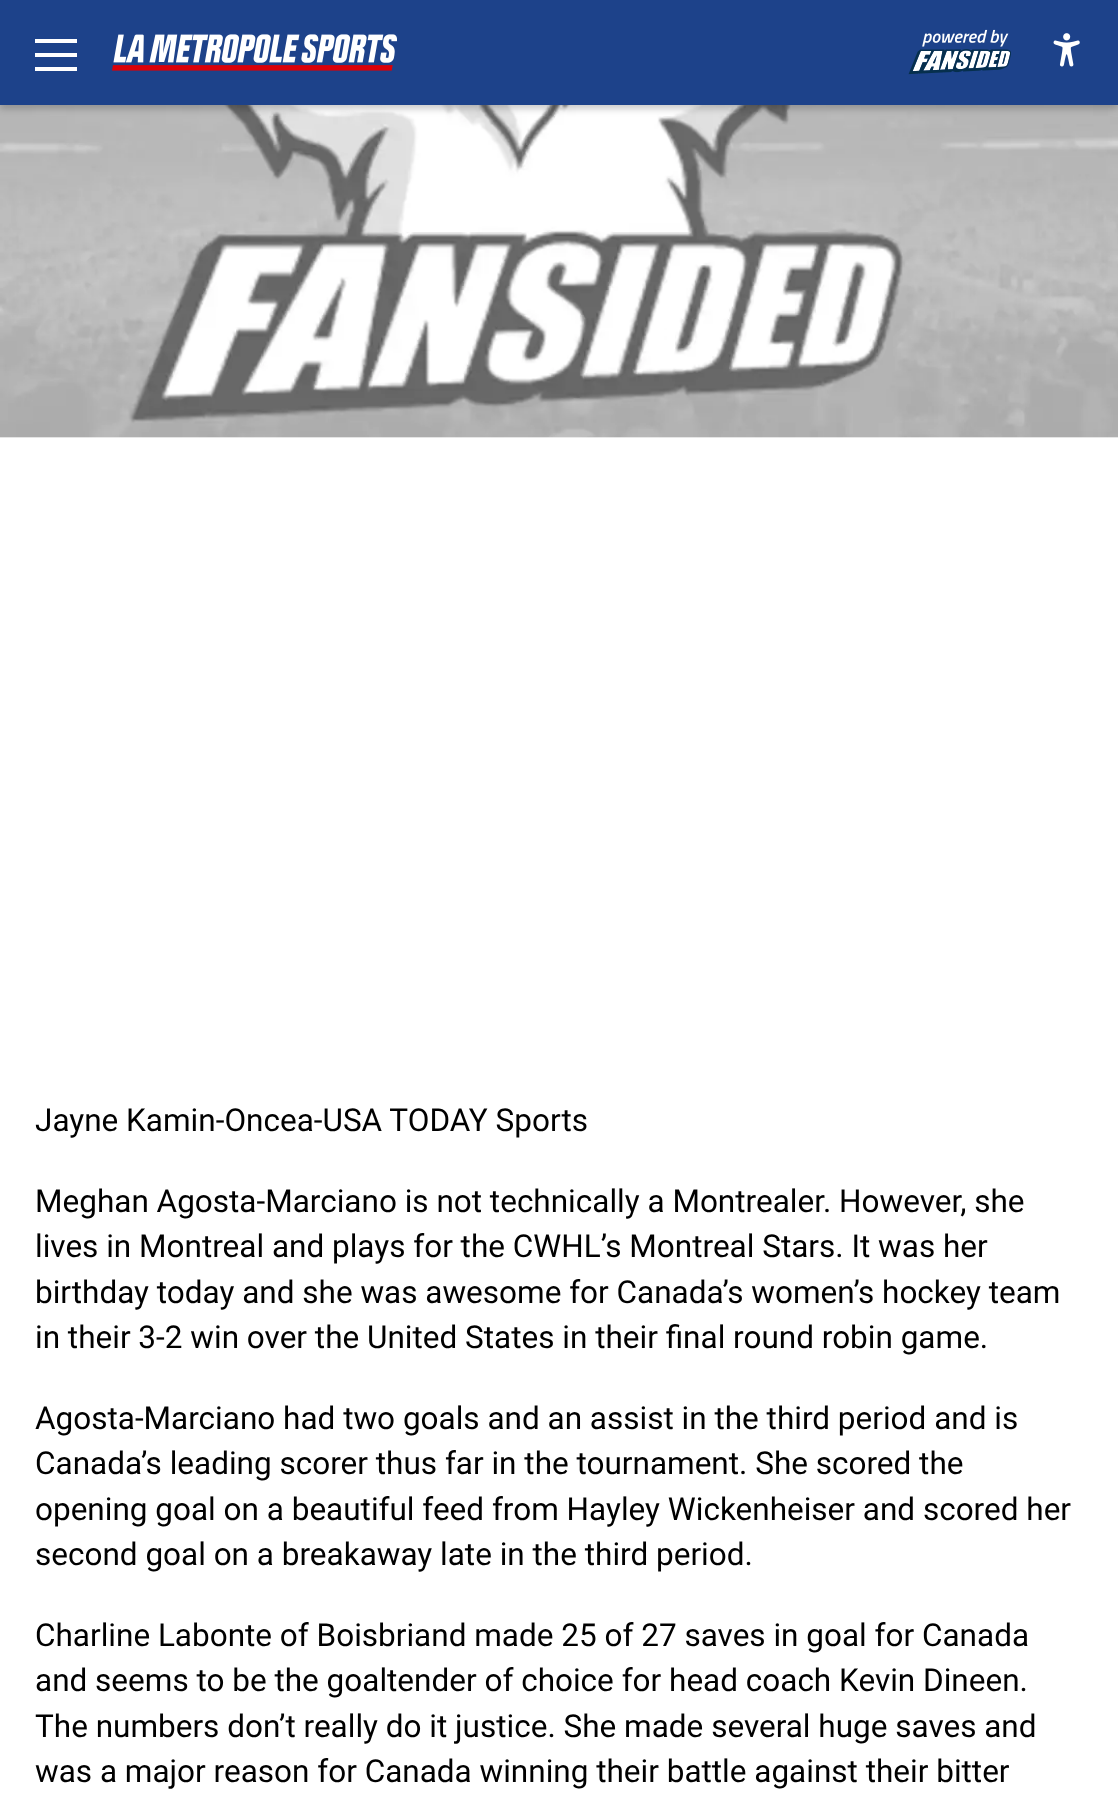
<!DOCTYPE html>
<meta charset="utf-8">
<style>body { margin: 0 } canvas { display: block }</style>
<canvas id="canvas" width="1118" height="1795"></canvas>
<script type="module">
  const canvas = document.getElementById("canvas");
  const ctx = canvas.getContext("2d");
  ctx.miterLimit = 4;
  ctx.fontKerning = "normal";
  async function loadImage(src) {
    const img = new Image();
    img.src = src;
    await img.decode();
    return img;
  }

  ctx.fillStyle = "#ffffff";
  ctx.fillRect(0, 0, 1118, 1795);
  ctx.fillStyle = "#f7f7f7";
  ctx.fillRect(0, 437, 1118, 1);
  ctx.drawImage(await loadImage("img4.png"), 0, 105, 1118, 333);
  ctx.fillStyle = "rgba(0, 0, 0, 0.2)";
  ctx.filter = "blur(3.5px)";
  ctx.beginPath();
  ctx.rect(0, 4, 1118, 105);
  ctx.fill();
  ctx.filter = "none";
  ctx.fillStyle = "#1d428a";
  ctx.fillRect(0, 0, 1118, 105);
  ctx.fillStyle = "#ffffff";
  ctx.fillRect(35, 39, 42, 4);
  ctx.fillRect(35, 53, 42, 4);
  ctx.fillRect(35, 67, 42, 4);
  ctx.drawImage(await loadImage("img1.png"), 112, 34, 285, 37);
  ctx.drawImage(await loadImage("img2.png"), 908, 29, 103, 46);
  ctx.drawImage(await loadImage("img3.png"), 1053, 33, 27, 34);
  ctx.font = "31.5px Roboto";
  ctx.fillStyle = "#000000";
  ctx.fillText("Jayne Kamin-Oncea-USA TODAY Sports", 35, 1131);
  ctx.fillText("Meghan Agosta-Marciano is not technically a Montrealer. However, she", 35, 1212);
  ctx.fillText("lives in Montreal and plays for the CWHL’s Montreal Stars. It was her", 35, 1257);
  ctx.fillText("birthday today and she was awesome for Canada’s women’s hockey team", 35, 1303);
  ctx.fillText("in their 3-2 win over the United States in their final round robin game.", 35, 1348);
  ctx.fillText("Agosta-Marciano had two goals and an assist in the third period and is", 35, 1429);
  ctx.fillText("Canada’s leading scorer thus far in the tournament. She scored the", 35, 1474);
  ctx.fillText("opening goal on a beautiful feed from Hayley Wickenheiser and scored her", 35, 1520);
  ctx.fillText("second goal on a breakaway late in the third period.", 35, 1565);
  ctx.fillText("Charline Labonte of Boisbriand made 25 of 27 saves in goal for Canada", 35, 1646);
  ctx.fillText("and seems to be the goaltender of choice for head coach Kevin Dineen.", 35, 1691);
  ctx.fillText("The numbers don’t really do it justice. She made several huge saves and", 35, 1737);
  ctx.fillText("was a major reason for Canada winning their battle against their bitter", 35, 1782);
</script>
